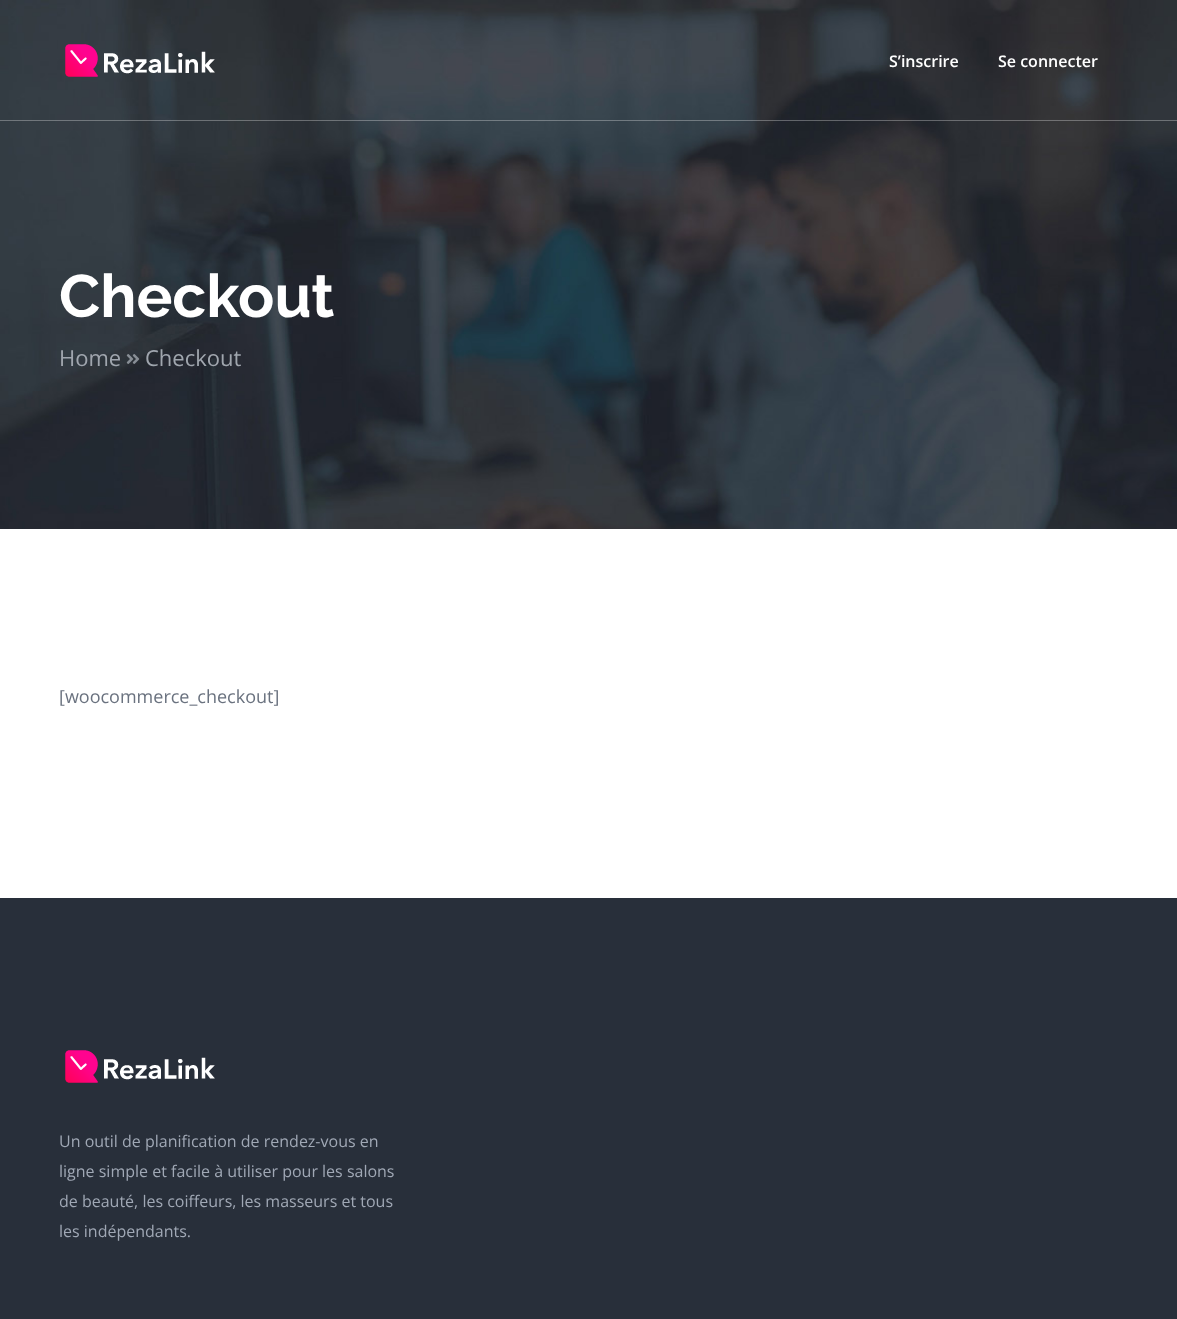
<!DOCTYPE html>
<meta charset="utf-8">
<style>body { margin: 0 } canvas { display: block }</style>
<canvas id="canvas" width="1177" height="1319"></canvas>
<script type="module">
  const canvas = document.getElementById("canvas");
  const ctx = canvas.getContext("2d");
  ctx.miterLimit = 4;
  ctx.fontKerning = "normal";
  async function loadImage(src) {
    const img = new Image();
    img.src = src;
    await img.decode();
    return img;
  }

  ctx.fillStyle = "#ffffff";
  ctx.fillRect(0, 0, 1177, 1319);
  ctx.drawImage(await loadImage("img2.png"), 0, 0, 1177, 529);
  ctx.fillStyle = "rgba(255, 255, 255, 0.3)";
  ctx.fillRect(0, 120, 1177, 1);
  ctx.drawImage(await loadImage("img1.png"), 65, 44, 150, 33);
  ctx.font = "600 16px Open Sans";
  ctx.fillStyle = "#ffffff";
  ctx.fillText("S’inscrire", 889, 67);
  ctx.fillText("Se connecter", 998, 67);
  ctx.font = "bold 60px Raleway";
  ctx.fillText("Checkout", 59, 317);
  ctx.font = "22px Open Sans";
  ctx.fillStyle = "#a0a6ae";
  ctx.fillText("Home", 59, 366);
  ctx.drawImage(await loadImage("img4.png"), 132, 354, 8, 10);
  ctx.drawImage(await loadImage("img3.png"), 126, 354, 8, 10);
  ctx.fillText("Checkout", 145, 366);
  ctx.font = "18px Open Sans";
  ctx.fillStyle = "#6a727f";
  ctx.fillText("[woocommerce_checkout]", 59, 703);
  ctx.fillStyle = "#282f3a";
  ctx.fillRect(0, 898, 1177, 421);
  ctx.drawImage(await loadImage("img5.png"), 65, 1050, 150, 33);
  ctx.font = "16px Open Sans";
  ctx.fillStyle = "#a0a8b5";
  ctx.fillText("Un outil de planification de rendez-vous en", 59, 1147);
  ctx.fillText("ligne simple et facile à utiliser pour les salons", 59, 1177);
  ctx.fillText("de beauté, les coiffeurs, les masseurs et tous", 59, 1207);
  ctx.fillText("les indépendants.", 59, 1237);
</script>
